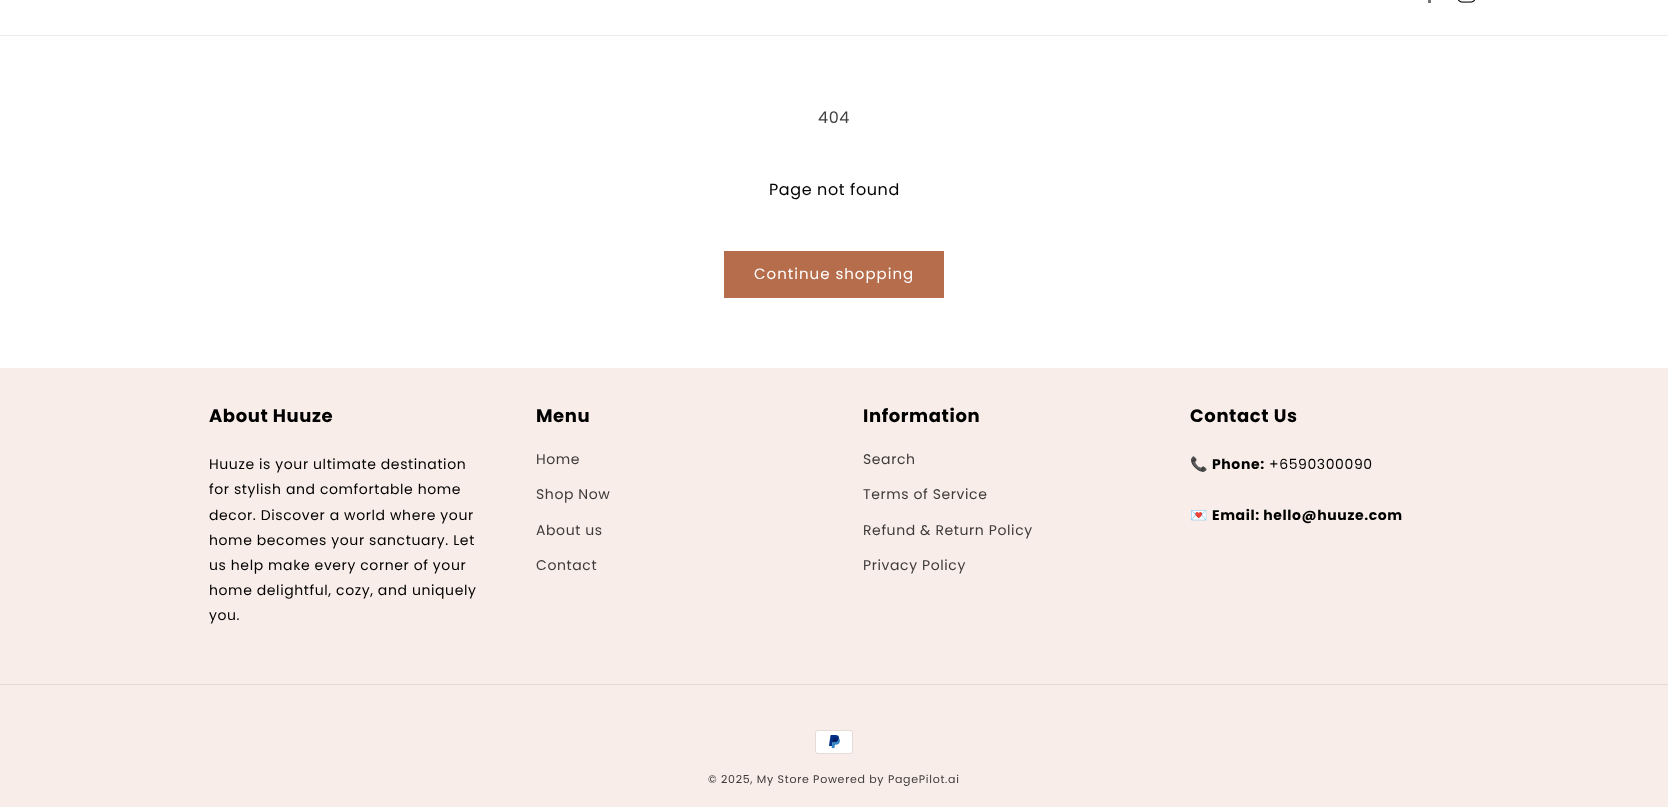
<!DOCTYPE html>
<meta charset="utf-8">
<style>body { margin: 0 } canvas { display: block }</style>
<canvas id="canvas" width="1668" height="807"></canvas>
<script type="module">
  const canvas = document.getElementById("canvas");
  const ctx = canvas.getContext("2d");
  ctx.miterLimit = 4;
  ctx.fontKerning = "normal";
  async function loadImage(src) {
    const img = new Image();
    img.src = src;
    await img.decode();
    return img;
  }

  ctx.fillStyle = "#ffffff";
  ctx.fillRect(0, 0, 1668, 807);
  ctx.fillStyle = "#ebebeb";
  ctx.fillRect(0, 35, 1668, 1);
  ctx.fillStyle = "#737373";
  ctx.fillRect(1428, 0, 3, 3);
  ctx.drawImage(await loadImage("img1.png"), 1457, 0, 19, 3);
  ctx.letterSpacing = "0.6px";
  ctx.font = "16px Poppins";
  ctx.fillStyle = "#404040";
  ctx.fillText("404", 818, 123);
  ctx.fillStyle = "#000000";
  ctx.fillText("Page not found", 769, 195);
  ctx.fillStyle = "#b66d4c";
  ctx.fillRect(724, 251, 220, 47);
  ctx.letterSpacing = "1px";
  ctx.font = "15px Poppins";
  ctx.fillStyle = "#ffffff";
  ctx.fillText("Continue shopping", 754, 279);
  ctx.fillStyle = "#f8ede8";
  ctx.fillRect(0, 368, 1668, 439);
  ctx.letterSpacing = "0.6px";
  ctx.font = "bold 18px Poppins";
  ctx.fillStyle = "#000000";
  ctx.fillText("About Huuze", 209, 422);
  ctx.font = "14px Poppins";
  ctx.fillText("Huuze is your ultimate destination", 209, 469);
  ctx.fillText("for stylish and comfortable home", 209, 494);
  ctx.fillText("decor. Discover a world where your", 209, 520);
  ctx.fillText("home becomes your sanctuary. Let", 209, 545);
  ctx.fillText("us help make every corner of your", 209, 570);
  ctx.fillText("home delightful, cozy, and uniquely", 209, 595);
  ctx.fillText("you.", 209, 620);
  ctx.font = "bold 18px Poppins";
  ctx.fillText("Menu", 536, 422);
  ctx.font = "14px Poppins";
  ctx.fillStyle = "#3e3b3a";
  ctx.fillText("Home", 536, 464);
  ctx.fillText("Shop Now", 536, 499);
  ctx.fillText("About us", 536, 535);
  ctx.fillText("Contact", 536, 570);
  ctx.font = "bold 18px Poppins";
  ctx.fillStyle = "#000000";
  ctx.fillText("Information", 863, 422);
  ctx.font = "14px Poppins";
  ctx.fillStyle = "#3e3b3a";
  ctx.fillText("Search", 863, 464);
  ctx.fillText("Terms of Service", 863, 499);
  ctx.fillText("Refund & Return Policy", 863, 535);
  ctx.fillText("Privacy Policy", 863, 570);
  ctx.font = "bold 18px Poppins";
  ctx.fillStyle = "#000000";
  ctx.fillText("Contact Us", 1190, 422);
  ctx.font = "bold 14px Noto Color Emoji";
  ctx.fillText("📞", 1190, 469);
  ctx.font = "bold 14px Poppins";
  ctx.fillText("Phone:", 1212, 469);
  ctx.font = "14px Poppins";
  ctx.fillText("+6590300090", 1269, 469);
  ctx.font = "bold 14px Noto Color Emoji";
  ctx.fillText("💌", 1190, 520);
  ctx.font = "bold 14px Poppins";
  ctx.fillText("Email: hello@huuze.com", 1212, 520);
  ctx.fillStyle = "#e4dad5";
  ctx.fillRect(0, 684, 1668, 1);
  ctx.drawImage(await loadImage("img2.png"), 815, 730, 38, 24);
  ctx.letterSpacing = "0.7px";
  ctx.font = "11px Poppins";
  ctx.fillStyle = "#3e3b3a";
  ctx.fillText("© 2025, My Store Powered by PagePilot.ai", 708, 783);
</script>
